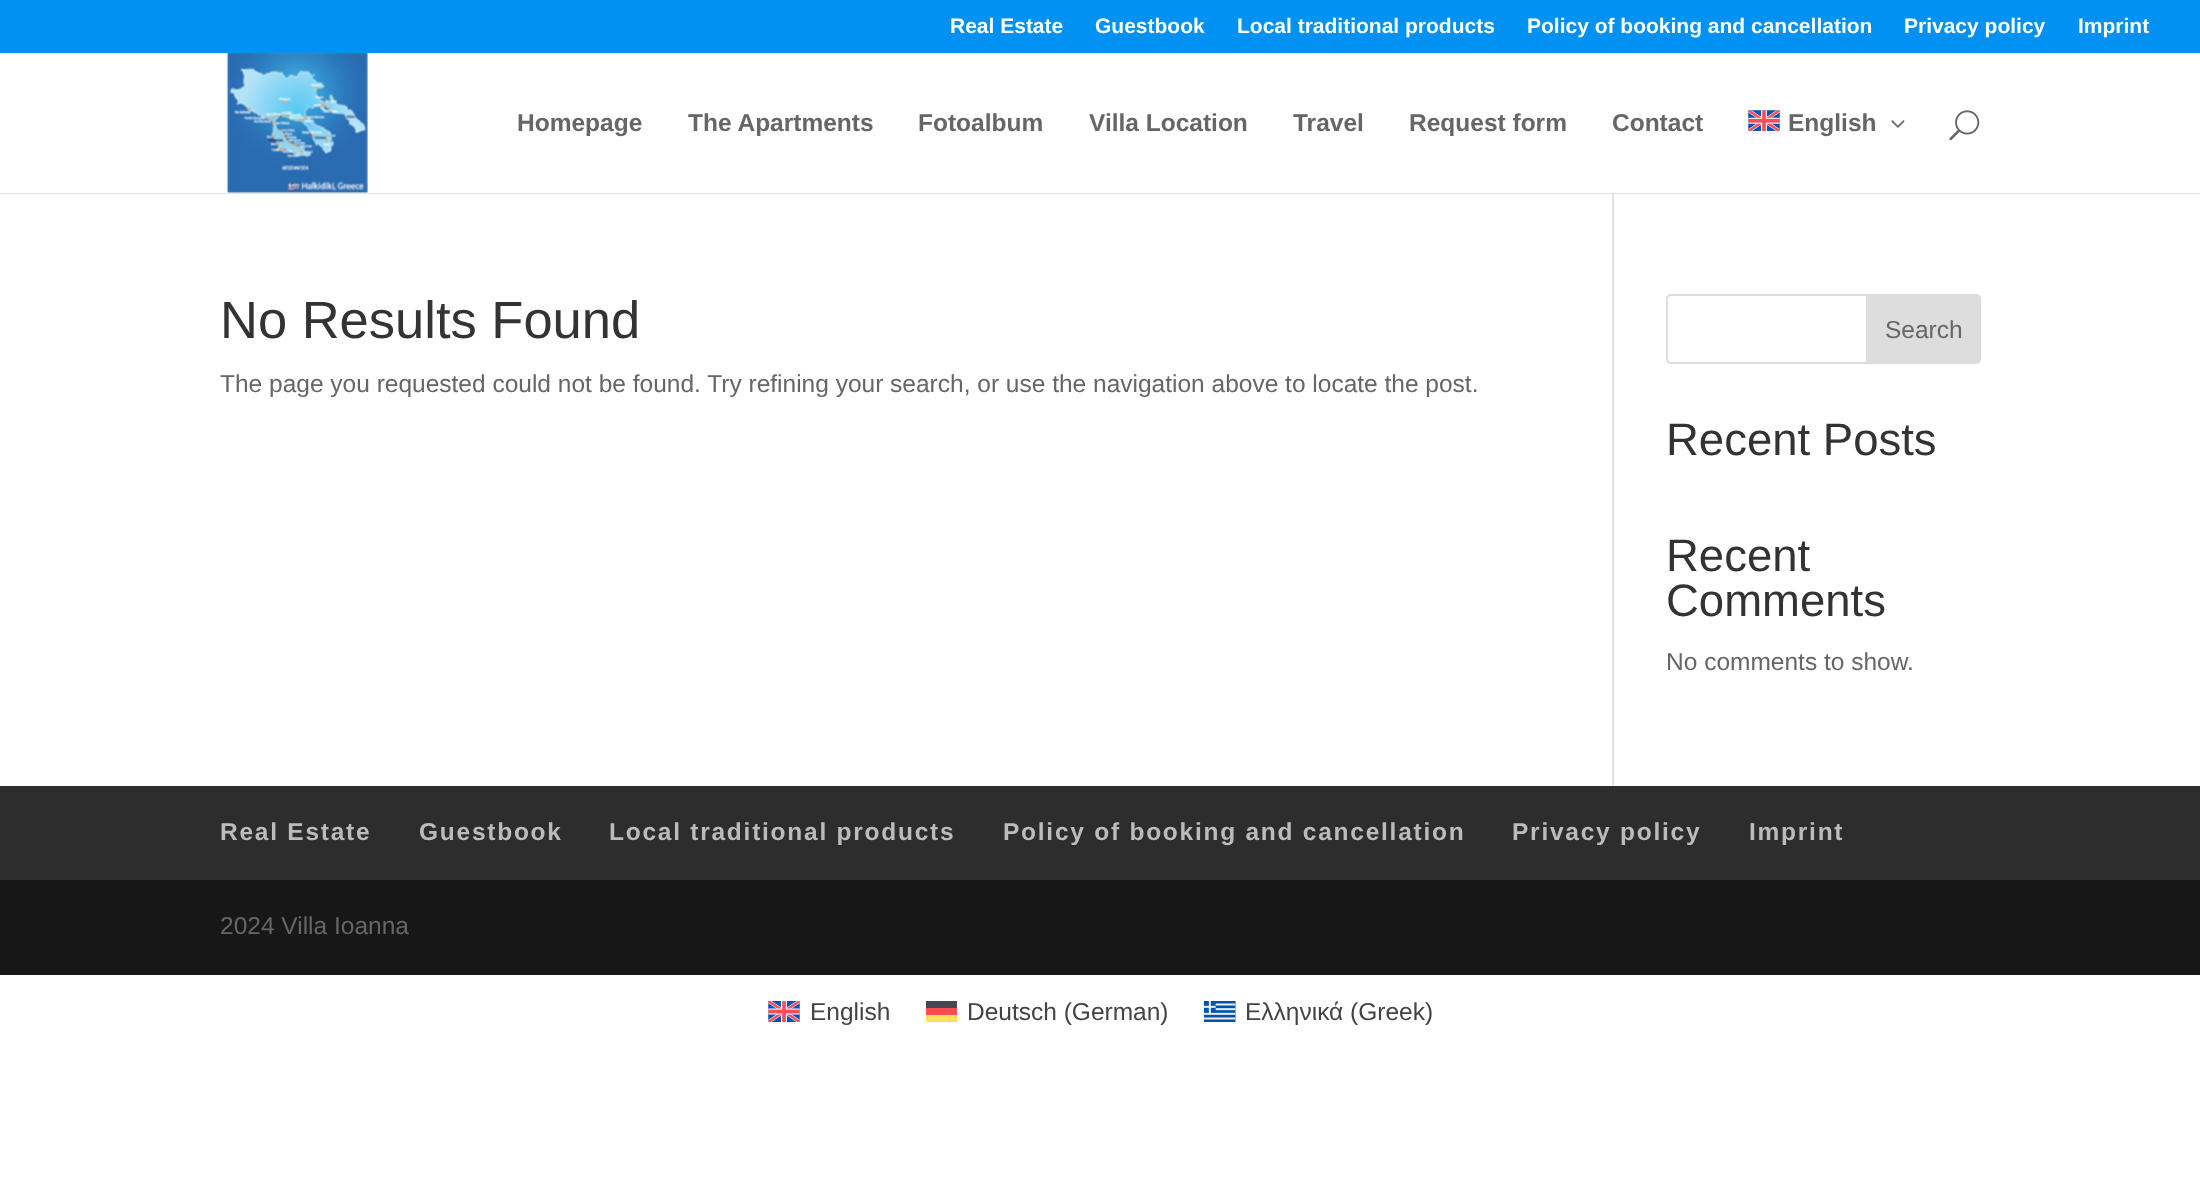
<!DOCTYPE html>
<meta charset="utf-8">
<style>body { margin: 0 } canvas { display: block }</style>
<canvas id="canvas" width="2200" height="1185"></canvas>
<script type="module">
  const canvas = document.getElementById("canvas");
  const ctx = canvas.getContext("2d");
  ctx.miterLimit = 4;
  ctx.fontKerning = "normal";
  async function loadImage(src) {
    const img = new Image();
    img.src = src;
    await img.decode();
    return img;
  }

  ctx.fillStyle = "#ffffff";
  ctx.fillRect(0, 0, 2200, 1185);
  ctx.fillStyle = "#0091f2";
  ctx.fillRect(0, 0, 2200, 53);
  ctx.font = "bold 21px Liberation Sans";
  ctx.fillStyle = "#ffffff";
  ctx.fillText("Real Estate", 950, 33);
  ctx.fillText("Guestbook", 1095, 33);
  ctx.fillText("Local traditional products", 1237, 33);
  ctx.fillText("Policy of booking and cancellation", 1527, 33);
  ctx.fillText("Privacy policy", 1904, 33);
  ctx.fillText("Imprint", 2078, 33);
  ctx.fillStyle = "#e2e2e2";
  ctx.fillRect(1612, 193, 2, 593);
  ctx.fillStyle = "rgba(0, 0, 0, 0.1)";
  ctx.beginPath();
  ctx.moveTo(0, 192);
  ctx.lineTo(0, 194);
  ctx.lineTo(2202, 194);
  ctx.lineTo(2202, 54);
  ctx.lineTo(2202, 192);
  ctx.closePath();
  ctx.fill();
  ctx.fillStyle = "#ffffff";
  ctx.fillRect(0, 192, 2200, 1);
  ctx.drawImage(await loadImage("img1.png"), 226, 53, 142, 140);
  ctx.font = "bold 24.5px Liberation Sans";
  ctx.fillStyle = "#666666";
  ctx.fillText("Homepage", 517, 131);
  ctx.fillText("The Apartments", 688, 131);
  ctx.fillText("Fotoalbum", 918, 131);
  ctx.fillText("Villa Location", 1089, 131);
  ctx.fillText("Travel", 1293, 131);
  ctx.fillText("Request form", 1409, 131);
  ctx.fillText("Contact", 1612, 131);
  ctx.drawImage(await loadImage("img2.png"), 1748, 110, 32, 21);
  ctx.fillText("English", 1788, 131);
  ctx.drawImage(await loadImage("img3.png"), 1891, 120, 14, 8);
  ctx.drawImage(await loadImage("img4.png"), 1949, 110, 31, 31);
  ctx.font = "52.5px Liberation Sans";
  ctx.fillStyle = "#333333";
  ctx.fillText("No Results Found", 220, 338);
  ctx.font = "24.5px Liberation Sans";
  ctx.fillStyle = "#666666";
  ctx.fillText("The page you requested could not be found. Try refining your search, or use the navigation above to locate the post.", 220, 392);
  ctx.beginPath();
  ctx.roundRect(1667, 295, 313, 68, 4);
  ctx.strokeStyle = "#dddddd";
  ctx.lineWidth = 2;
  ctx.stroke();
  ctx.fillStyle = "#dddddd";
  ctx.beginPath();
  ctx.roundRect(1867, 295, 113, 68, [0, 4, 4, 0]);
  ctx.fill();
  ctx.stroke();
  ctx.fillStyle = "#666666";
  ctx.fillText("Search", 1885, 338);
  ctx.font = "45.5px Liberation Sans";
  ctx.fillStyle = "#333333";
  ctx.fillText("Recent Posts", 1666, 455);
  ctx.fillText("Recent", 1666, 571);
  ctx.fillText("Comments", 1666, 616);
  ctx.font = "24.5px Liberation Sans";
  ctx.fillStyle = "#666666";
  ctx.fillText("No comments to show.", 1666, 670);
  ctx.fillStyle = "#2d2d2d";
  ctx.fillRect(0, 786, 2200, 94);
  ctx.letterSpacing = "1.75px";
  ctx.font = "bold 24.5px Liberation Sans";
  ctx.fillStyle = "#bbbbbb";
  ctx.fillText("Real Estate", 220, 840);
  ctx.fillText("Guestbook", 419, 840);
  ctx.fillText("Local traditional products", 609, 840);
  ctx.fillText("Policy of booking and cancellation", 1003, 840);
  ctx.fillText("Privacy policy", 1512, 840);
  ctx.fillText("Imprint", 1749, 840);
  ctx.fillStyle = "#171717";
  ctx.fillRect(0, 880, 2200, 95);
  ctx.letterSpacing = "0px";
  ctx.font = "24.5px Liberation Sans";
  ctx.fillStyle = "#666666";
  ctx.fillText("2024 Villa Ioanna", 220, 934);
  ctx.drawImage(await loadImage("img5.png"), 768, 1001, 32, 21);
  ctx.fillStyle = "#444444";
  ctx.fillText("English", 810, 1020);
  ctx.fillStyle = "#464655";
  ctx.fillRect(926, 1001, 31, 7);
  ctx.fillStyle = "#444444";
  ctx.fillText("Deutsch (German)", 967, 1020);
  ctx.fillStyle = "#ff4b55";
  ctx.fillRect(926, 1008, 31, 7);
  ctx.fillStyle = "#ffe15a";
  ctx.fillRect(926, 1015, 31, 7);
  ctx.drawImage(await loadImage("img6.png"), 1204, 1001, 32, 21);
  ctx.fillStyle = "#444444";
  ctx.fillText("Ελληνικά (Greek)", 1245, 1020);
</script>
